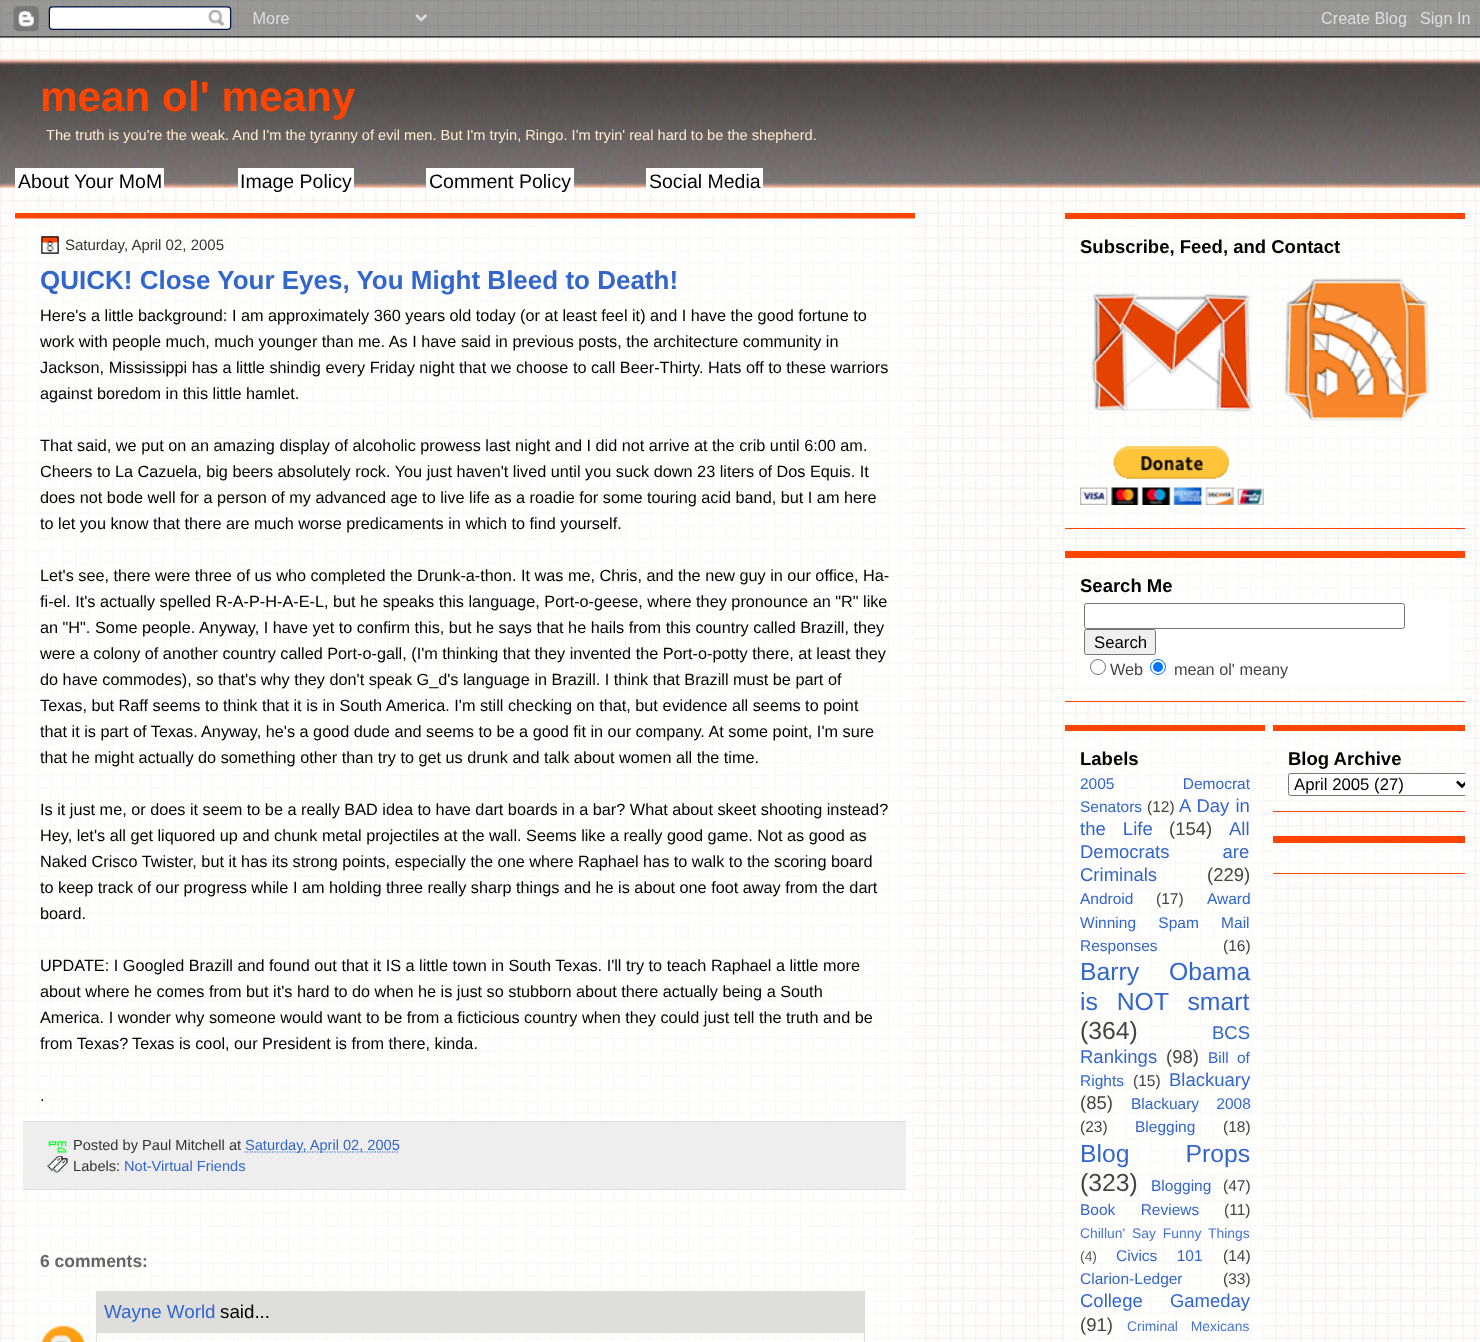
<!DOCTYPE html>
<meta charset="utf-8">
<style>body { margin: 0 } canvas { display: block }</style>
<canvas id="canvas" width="1480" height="1342"></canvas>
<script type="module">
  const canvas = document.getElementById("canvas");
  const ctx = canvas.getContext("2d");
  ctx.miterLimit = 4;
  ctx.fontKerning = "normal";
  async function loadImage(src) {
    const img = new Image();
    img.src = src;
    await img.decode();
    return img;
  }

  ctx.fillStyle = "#ffffff";
  ctx.fillRect(0, 0, 1480, 1342);
  ctx.drawImage(await loadImage("img1.png"), 0, 0, 1480, 1342);
  ctx.drawImage(await loadImage("img2.png"), 0, 0, 1480, 38);
  ctx.drawImage(await loadImage("img3.png"), 0, 58, 1480, 130);
  ctx.font = "bold 42.25px Liberation Sans";
  ctx.fillStyle = "#ff4500";
  ctx.fillText("mean ol' meany", 40, 111);
  ctx.font = "14.62px Liberation Sans";
  ctx.fillStyle = "#ffebcd";
  ctx.fillText("The truth is you're the weak. And I'm the tyranny of evil men. But I'm tryin, Ringo. I'm tryin' real hard to be the shepherd.", 46, 140);
  ctx.fillStyle = "#ffffff";
  ctx.fillRect(15, 168, 149, 26);
  ctx.font = "19.5px Liberation Sans";
  ctx.fillStyle = "#000000";
  ctx.fillText("About Your MoM", 18, 188);
  ctx.fillStyle = "#ffffff";
  ctx.fillRect(238, 168, 116, 26);
  ctx.fillStyle = "#000000";
  ctx.fillText("Image Policy", 240, 188);
  ctx.fillStyle = "#ffffff";
  ctx.fillRect(426, 168, 148, 26);
  ctx.fillStyle = "#000000";
  ctx.fillText("Comment Policy", 429, 188);
  ctx.fillStyle = "#ffffff";
  ctx.fillRect(646, 168, 117, 26);
  ctx.fillStyle = "#000000";
  ctx.fillText("Social Media", 649, 188);
  ctx.fillStyle = "#ff4500";
  ctx.fillRect(15, 213, 900, 6);
  ctx.fillStyle = "rgba(255, 255, 255, 0.5)";
  ctx.fillRect(15, 218, 900, 1124);
  ctx.drawImage(await loadImage("img4.png"), 41, 236, 18, 18);
  ctx.font = "15px Liberation Sans";
  ctx.fillStyle = "#333333";
  ctx.fillText("Saturday, April 02, 2005", 65, 250);
  ctx.font = "bold 26px Liberation Sans";
  ctx.fillStyle = "#3366cc";
  ctx.fillText("QUICK! Close Your Eyes, You Might Bleed to Death!", 40, 289);
  ctx.font = "16.25px Liberation Sans";
  ctx.fillStyle = "#000000";
  ctx.fillText("Here's a little background: I am approximately 360 years old today (or at least feel it) and I have the good fortune to", 40, 321);
  ctx.fillText("work with people much, much younger than me. As I have said in previous posts, the architecture community in", 40, 347);
  ctx.fillText("Jackson, Mississippi has a little shindig every Friday night that we choose to call Beer-Thirty. Hats off to these warriors", 40, 373);
  ctx.fillText("against boredom in this little hamlet.", 40, 399);
  ctx.fillText("That said, we put on an amazing display of alcoholic prowess last night and I did not arrive at the crib until 6:00 am.", 40, 451);
  ctx.fillText("Cheers to La Cazuela, big beers absolutely rock. You just haven't lived until you suck down 23 liters of Dos Equis. It", 40, 477);
  ctx.fillText("does not bode well for a person of my advanced age to live life as a roadie for some touring acid band, but I am here", 40, 503);
  ctx.fillText("to let you know that there are much worse predicaments in which to find yourself.", 40, 529);
  ctx.fillText("Let's see, there were three of us who completed the Drunk-a-thon. It was me, Chris, and the new guy in our office, Ha-", 40, 581);
  ctx.fillText("fi-el. It's actually spelled R-A-P-H-A-E-L, but he speaks this language, Port-o-geese, where they pronounce an \"R\" like", 40, 607);
  ctx.fillText("an \"H\".", 40, 633);
  ctx.fillText("Some people.", 95, 633);
  ctx.fillText("Anyway, I have yet to confirm this, but he says that he hails from this country called Brazill, they", 199, 633);
  ctx.fillText("were a colony of another country called Port-o-gall, (I'm thinking that they invented the Port-o-potty there, at least they", 40, 659);
  ctx.fillText("do have commodes), so that's why they don't speak G_d's language in Brazill. I think that Brazill must be part of", 40, 685);
  ctx.fillText("Texas, but Raff seems to think that it is in South America. I'm still checking on that, but evidence all seems to point", 40, 711);
  ctx.fillText("that it is part of Texas.", 40, 737);
  ctx.fillText("Anyway, he's a good dude and seems to be a good fit in our company. At some point, I'm sure", 201, 737);
  ctx.fillText("that he might actually do something other than try to get us drunk and talk about women all the time.", 40, 763);
  ctx.fillText("Is it just me, or does it seem to be a really BAD idea to have dart boards in a bar? What about skeet shooting instead?", 40, 815);
  ctx.fillText("Hey, let's all get liquored up and chunk metal projectiles at the wall. Seems like a really good game. Not as good as", 40, 841);
  ctx.fillText("Naked Crisco Twister, but it has its strong points, especially the one where Raphael has to walk to the scoring board", 40, 867);
  ctx.fillText("to keep track of our progress while I am holding three really sharp things and he is about one foot away from the dart", 40, 893);
  ctx.fillText("board.", 40, 919);
  ctx.fillText("UPDATE: I Googled Brazill and found out that it IS a little town in South Texas. I'll try to teach Raphael a little more", 40, 971);
  ctx.fillText("about where he comes from but it's hard to do when he is just so stubborn about there actually being a South", 40, 997);
  ctx.fillText("America. I wonder why someone would want to be from a ficticious country when they could just tell the truth and be", 40, 1023);
  ctx.fillText("from Texas?", 40, 1049);
  ctx.fillText("Texas is cool, our President is from there, kinda.", 132, 1049);
  ctx.fillText(".", 40, 1101);
  ctx.fillStyle = "#eeeeee";
  ctx.fillRect(23, 1122, 883, 67);
  ctx.fillStyle = "#dddddd";
  ctx.fillRect(23, 1121, 883, 1);
  ctx.fillRect(23, 1189, 883, 1);
  ctx.drawImage(await loadImage("img5.png"), 48, 1141, 19, 12);
  ctx.font = "14.62px Liberation Sans";
  ctx.fillStyle = "#333333";
  ctx.fillText("Posted by Paul Mitchell at", 73, 1150);
  ctx.beginPath();
  ctx.moveTo(244.5, 1152);
  ctx.lineTo(399.5, 1152);
  ctx.strokeStyle = "#3366cc";
  ctx.lineWidth = 1.2;
  ctx.setLineDash([1.25, 1.25]);
  ctx.stroke();
  ctx.fillStyle = "#3366cc";
  ctx.fillText("Saturday, April 02, 2005", 245, 1150);
  ctx.drawImage(await loadImage("img6.png"), 47, 1156, 21, 17);
  ctx.fillStyle = "#333333";
  ctx.fillText("Labels:", 73, 1171);
  ctx.fillStyle = "#3366cc";
  ctx.fillText("Not-Virtual Friends", 124, 1171);
  ctx.font = "bold 17.5px Liberation Sans";
  ctx.fillStyle = "#666666";
  ctx.fillText("6 comments:", 40, 1267);
  ctx.fillStyle = "#dededd";
  ctx.fillRect(96, 1291, 769, 42);
  ctx.font = "18.75px Liberation Sans";
  ctx.fillStyle = "#3366cc";
  ctx.fillText("Wayne World", 104, 1318);
  ctx.fillStyle = "#000000";
  ctx.fillText("said...", 220, 1318);
  ctx.drawImage(await loadImage("img7.png"), 41, 1326, 44, 16);
  ctx.fillStyle = "#dededd";
  ctx.fillRect(864, 1333, 1, 9);
  ctx.fillRect(96, 1333, 1, 9);
  ctx.fillStyle = "rgba(255, 255, 255, 0.5)";
  ctx.fillRect(1065, 219, 400, 309);
  ctx.fillStyle = "#ff4500";
  ctx.fillRect(1065, 213, 400, 6);
  ctx.fillRect(1065, 528, 400, 1);
  ctx.font = "bold 18.5px Liberation Sans";
  ctx.fillStyle = "#000000";
  ctx.fillText("Subscribe, Feed, and Contact", 1080, 253);
  ctx.drawImage(await loadImage("img8.png"), 1091, 292, 163, 120);
  ctx.drawImage(await loadImage("img9.png"), 1284, 278, 146, 143);
  ctx.drawImage(await loadImage("img10.png"), 1080, 446, 184, 59);
  ctx.fillStyle = "rgba(255, 255, 255, 0.5)";
  ctx.fillRect(1065, 558, 400, 143);
  ctx.fillStyle = "#ff4500";
  ctx.fillRect(1065, 551, 400, 7);
  ctx.fillRect(1065, 701, 400, 1);
  ctx.fillStyle = "#000000";
  ctx.fillText("Search Me", 1080, 592);
  ctx.fillStyle = "#ffffff";
  ctx.fillRect(1080, 599, 370, 87);
  ctx.beginPath();
  ctx.roundRect(1084.5, 603.5, 320, 25, 2);
  ctx.strokeStyle = "#767676";
  ctx.lineWidth = 1;
  ctx.setLineDash([]);
  ctx.stroke();
  ctx.fillStyle = "#efefef";
  ctx.beginPath();
  ctx.roundRect(1084.5, 629.5, 71, 25, 2);
  ctx.fill();
  ctx.stroke();
  ctx.font = "16.75px Liberation Sans";
  ctx.fillStyle = "#000000";
  ctx.fillText("Search", 1094, 648);
  ctx.beginPath();
  ctx.arc(1098, 667, 7.5, 0, Math.PI * 2);
  ctx.stroke();
  ctx.font = "16.25px Liberation Sans";
  ctx.fillStyle = "#444444";
  ctx.fillText("Web", 1110, 675);
  ctx.beginPath();
  ctx.arc(1158, 667, 7.5, 0, Math.PI * 2);
  ctx.strokeStyle = "#0075ff";
  ctx.stroke();
  ctx.fillStyle = "#0075ff";
  ctx.beginPath();
  ctx.arc(1158, 667, 5, 0, Math.PI * 2);
  ctx.fill();
  ctx.fillStyle = "#444444";
  ctx.fillText("mean ol' meany", 1174, 675);
  ctx.fillStyle = "rgba(255, 255, 255, 0.5)";
  ctx.fillRect(1065, 731, 200, 611);
  ctx.fillStyle = "#ff4500";
  ctx.fillRect(1065, 725, 200, 6);
  ctx.font = "bold 18.5px Liberation Sans";
  ctx.fillStyle = "#000000";
  ctx.fillText("Labels", 1080, 765);
  ctx.wordSpacing = "64px";
  ctx.font = "15.5px Liberation Sans";
  ctx.fillStyle = "#3366cc";
  ctx.fillText("2005 Democrat", 1080, 789);
  ctx.wordSpacing = "0px";
  ctx.fillText("Senators", 1080, 812);
  ctx.fillStyle = "#444444";
  ctx.fillText("(12)", 1147, 812);
  ctx.wordSpacing = "1px";
  ctx.font = "18.5px Liberation Sans";
  ctx.fillStyle = "#3366cc";
  ctx.fillText("A Day in", 1179, 812);
  ctx.wordSpacing = "12px";
  ctx.fillText("the Life", 1080, 835);
  ctx.wordSpacing = "0px";
  ctx.fillStyle = "#444444";
  ctx.fillText("(154)", 1169, 835);
  ctx.fillStyle = "#3366cc";
  ctx.fillText("All", 1229, 835);
  ctx.wordSpacing = "48px";
  ctx.fillText("Democrats are", 1080, 858);
  ctx.wordSpacing = "0px";
  ctx.fillText("Criminals", 1080, 881);
  ctx.fillStyle = "#444444";
  ctx.fillText("(229)", 1207, 881);
  ctx.font = "15.5px Liberation Sans";
  ctx.fillStyle = "#3366cc";
  ctx.fillText("Android", 1080, 904);
  ctx.fillStyle = "#444444";
  ctx.fillText("(17)", 1156, 904);
  ctx.fillStyle = "#3366cc";
  ctx.fillText("Award", 1207, 904);
  ctx.wordSpacing = "18px";
  ctx.fillText("Winning Spam Mail", 1080, 928);
  ctx.wordSpacing = "0px";
  ctx.fillText("Responses", 1080, 951);
  ctx.fillStyle = "#444444";
  ctx.fillText("(16)", 1223, 951);
  ctx.wordSpacing = "23px";
  ctx.font = "24.75px Liberation Sans";
  ctx.fillStyle = "#3366cc";
  ctx.fillText("Barry Obama", 1080, 980);
  ctx.wordSpacing = "12px";
  ctx.fillText("is NOT smart", 1080, 1010);
  ctx.wordSpacing = "0px";
  ctx.fillStyle = "#444444";
  ctx.fillText("(364)", 1080, 1039);
  ctx.font = "18.5px Liberation Sans";
  ctx.fillStyle = "#3366cc";
  ctx.fillText("BCS", 1212, 1039);
  ctx.fillText("Rankings", 1080, 1063);
  ctx.fillStyle = "#444444";
  ctx.fillText("(98)", 1166, 1063);
  ctx.wordSpacing = "4px";
  ctx.font = "15.5px Liberation Sans";
  ctx.fillStyle = "#3366cc";
  ctx.fillText("Bill of", 1208, 1063);
  ctx.wordSpacing = "0px";
  ctx.fillText("Rights", 1080, 1086);
  ctx.fillStyle = "#444444";
  ctx.fillText("(15)", 1133, 1086);
  ctx.font = "18.5px Liberation Sans";
  ctx.fillStyle = "#3366cc";
  ctx.fillText("Blackuary", 1169, 1086);
  ctx.fillStyle = "#444444";
  ctx.fillText("(85)", 1080, 1109);
  ctx.wordSpacing = "13px";
  ctx.font = "15.5px Liberation Sans";
  ctx.fillStyle = "#3366cc";
  ctx.fillText("Blackuary 2008", 1131, 1109);
  ctx.wordSpacing = "0px";
  ctx.fillStyle = "#444444";
  ctx.fillText("(23)", 1080, 1132);
  ctx.fillStyle = "#3366cc";
  ctx.fillText("Blegging", 1135, 1132);
  ctx.fillStyle = "#444444";
  ctx.fillText("(18)", 1223, 1132);
  ctx.wordSpacing = "49px";
  ctx.font = "24.75px Liberation Sans";
  ctx.fillStyle = "#3366cc";
  ctx.fillText("Blog Props", 1080, 1162);
  ctx.wordSpacing = "0px";
  ctx.fillStyle = "#444444";
  ctx.fillText("(323)", 1080, 1191);
  ctx.font = "15.5px Liberation Sans";
  ctx.fillStyle = "#3366cc";
  ctx.fillText("Blogging", 1151, 1191);
  ctx.fillStyle = "#444444";
  ctx.fillText("(47)", 1223, 1191);
  ctx.wordSpacing = "21px";
  ctx.fillStyle = "#3366cc";
  ctx.fillText("Book Reviews", 1080, 1215);
  ctx.wordSpacing = "0px";
  ctx.fillStyle = "#444444";
  ctx.fillText("(11)", 1224, 1215);
  ctx.wordSpacing = "3px";
  ctx.font = "13.9px Liberation Sans";
  ctx.fillStyle = "#4775d1";
  ctx.fillText("Chillun' Say Funny Things", 1080, 1238);
  ctx.wordSpacing = "0px";
  ctx.fillStyle = "#575756";
  ctx.fillText("(4)", 1080, 1261);
  ctx.wordSpacing = "15px";
  ctx.font = "15.5px Liberation Sans";
  ctx.fillStyle = "#3366cc";
  ctx.fillText("Civics 101", 1116, 1261);
  ctx.wordSpacing = "0px";
  ctx.fillStyle = "#444444";
  ctx.fillText("(14)", 1223, 1261);
  ctx.fillStyle = "#3366cc";
  ctx.fillText("Clarion-Ledger", 1080, 1284);
  ctx.fillStyle = "#444444";
  ctx.fillText("(33)", 1223, 1284);
  ctx.wordSpacing = "22px";
  ctx.font = "18.5px Liberation Sans";
  ctx.fillStyle = "#3366cc";
  ctx.fillText("College Gameday", 1080, 1307);
  ctx.wordSpacing = "0px";
  ctx.fillStyle = "#444444";
  ctx.fillText("(91)", 1080, 1331);
  ctx.wordSpacing = "9px";
  ctx.font = "13.9px Liberation Sans";
  ctx.fillStyle = "#4775d1";
  ctx.fillText("Criminal Mexicans", 1127, 1331);
  ctx.fillStyle = "rgba(255, 255, 255, 0.5)";
  ctx.fillRect(1273, 731, 192, 82);
  ctx.fillStyle = "#ff4500";
  ctx.fillRect(1273, 725, 192, 6);
  ctx.fillRect(1273, 811, 192, 1);
  ctx.wordSpacing = "0px";
  ctx.font = "bold 18.5px Liberation Sans";
  ctx.fillStyle = "#000000";
  ctx.fillText("Blog Archive", 1288, 765);
  ctx.fillStyle = "#ffffff";
  ctx.beginPath();
  ctx.roundRect(1288, 773, 177, 23, [2.5, 0, 0, 2.5]);
  ctx.fill();
  ctx.save();
  ctx.beginPath();
  ctx.rect(1065, 213, 400, 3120);
  ctx.clip();
  ctx.beginPath();
  ctx.roundRect(1288.5, 773.5, 184, 22, 2);
  ctx.strokeStyle = "#767676";
  ctx.stroke();
  ctx.beginPath();
  ctx.moveTo(1457, 781.5);
  ctx.lineTo(1462, 786.5);
  ctx.lineTo(1467, 781.5);
  ctx.strokeStyle = "#000000";
  ctx.lineWidth = 2.5;
  ctx.stroke();
  ctx.restore();
  ctx.font = "16.75px Liberation Sans";
  ctx.fillStyle = "#000000";
  ctx.fillText("April 2005 (27)", 1294, 790);
  ctx.fillStyle = "rgba(255, 255, 255, 0.5)";
  ctx.fillRect(1273, 843, 192, 30);
  ctx.fillStyle = "#ff4500";
  ctx.fillRect(1273, 836, 192, 7);
  ctx.fillRect(1273, 873, 192, 1);
</script>
